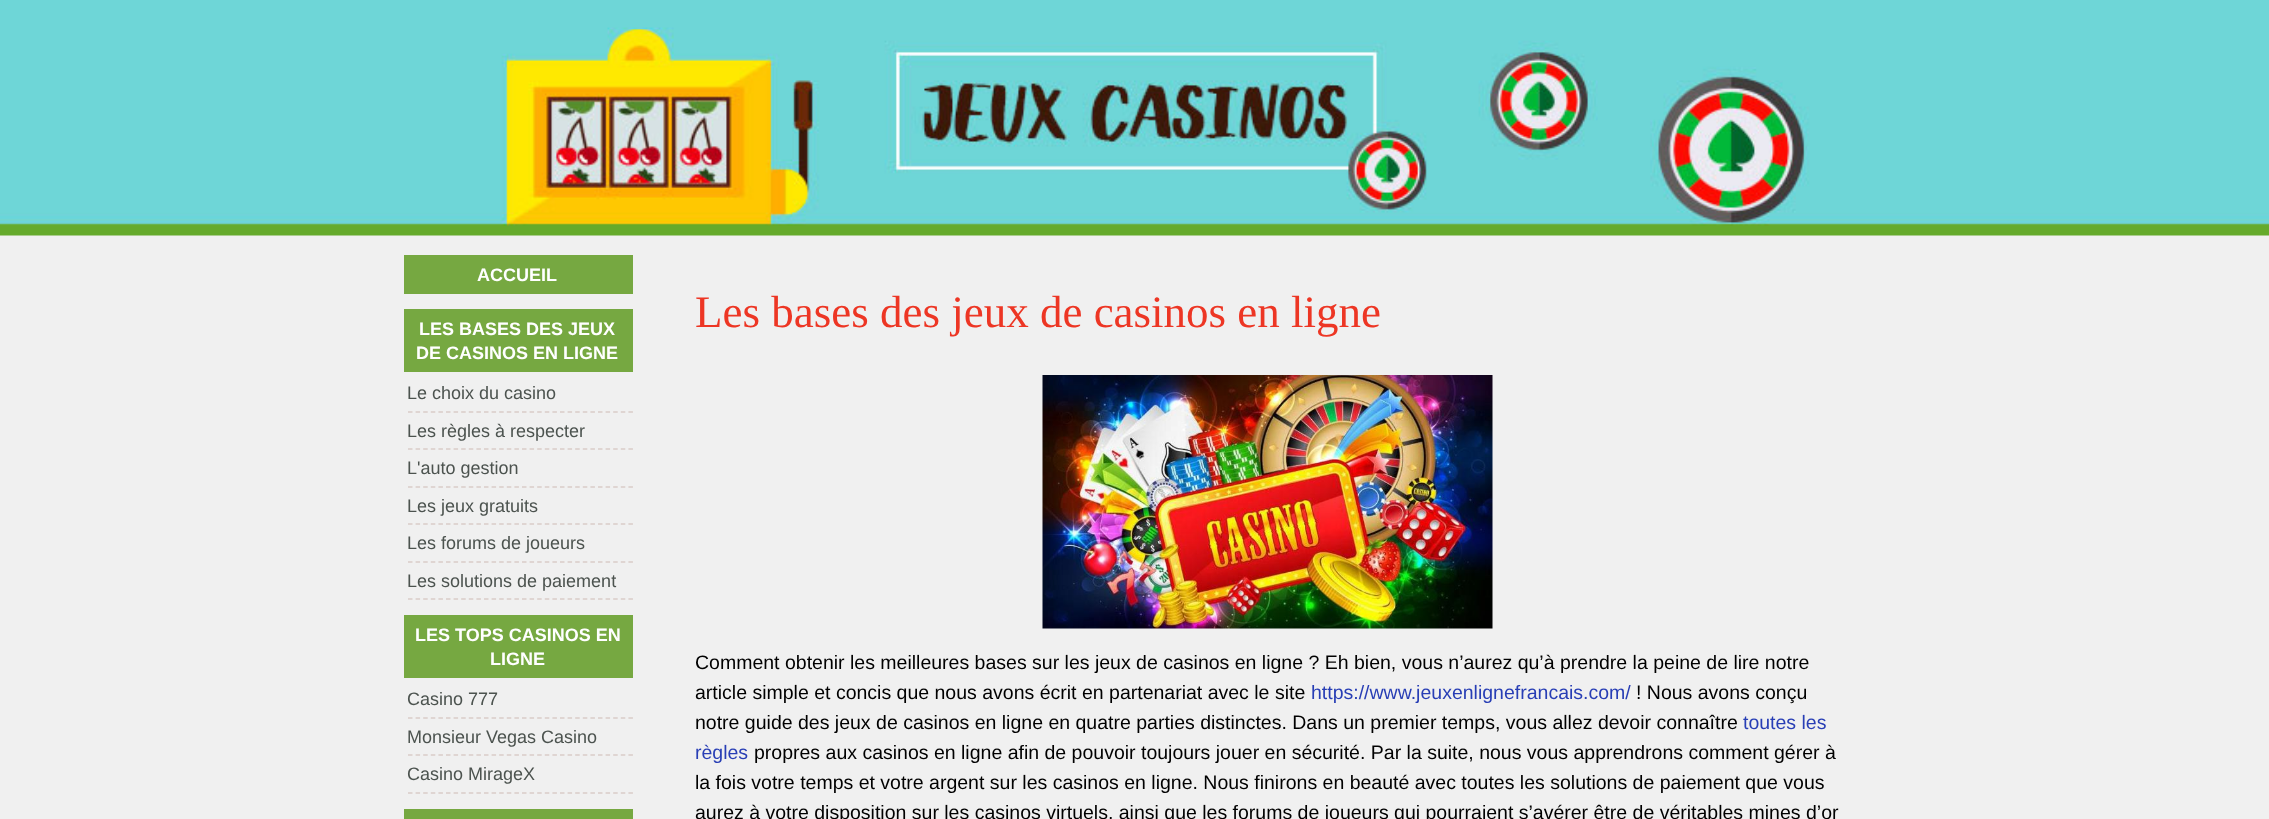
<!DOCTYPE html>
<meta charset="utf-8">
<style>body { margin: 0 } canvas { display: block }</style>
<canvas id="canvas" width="2269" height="819"></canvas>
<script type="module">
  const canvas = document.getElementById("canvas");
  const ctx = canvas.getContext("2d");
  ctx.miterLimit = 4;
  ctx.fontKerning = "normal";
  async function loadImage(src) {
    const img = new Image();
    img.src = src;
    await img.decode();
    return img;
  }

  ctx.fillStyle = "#f0f0f0";
  ctx.fillRect(0, 0, 2269, 819);
  ctx.drawImage(await loadImage("img1.png"), 0, 0, 2269, 236);
  ctx.fillStyle = "#76a841";
  ctx.fillRect(404, 255, 229, 39);
  ctx.font = "bold 18px Liberation Sans";
  ctx.fillStyle = "#ffffff";
  ctx.fillText("ACCUEIL", 477, 281);
  ctx.fillStyle = "#76a841";
  ctx.fillRect(404, 309, 229, 63);
  ctx.fillStyle = "#ffffff";
  ctx.fillText("LES BASES DES JEUX", 419, 335);
  ctx.fillText("DE CASINOS EN LIGNE", 416, 359);
  ctx.beginPath();
  ctx.moveTo(408, 412);
  ctx.lineTo(633, 412);
  ctx.strokeStyle = "#d9ccc7";
  ctx.lineWidth = 1.5;
  ctx.setLineDash([4.5, 3.1]);
  ctx.stroke();
  ctx.font = "18px Liberation Sans";
  ctx.fillStyle = "#4c534f";
  ctx.fillText("Le choix du casino", 407, 399);
  ctx.beginPath();
  ctx.moveTo(408, 449);
  ctx.lineTo(633, 449);
  ctx.stroke();
  ctx.fillText("Les règles à respecter", 407, 437);
  ctx.beginPath();
  ctx.moveTo(408, 487);
  ctx.lineTo(633, 487);
  ctx.stroke();
  ctx.fillText("L'auto gestion", 407, 474);
  ctx.beginPath();
  ctx.moveTo(408, 524);
  ctx.lineTo(633, 524);
  ctx.stroke();
  ctx.fillText("Les jeux gratuits", 407, 512);
  ctx.beginPath();
  ctx.moveTo(408, 562);
  ctx.lineTo(633, 562);
  ctx.stroke();
  ctx.fillText("Les forums de joueurs", 407, 549);
  ctx.beginPath();
  ctx.moveTo(408, 599);
  ctx.lineTo(633, 599);
  ctx.stroke();
  ctx.fillText("Les solutions de paiement", 407, 587);
  ctx.fillStyle = "#76a841";
  ctx.fillRect(404, 615, 229, 63);
  ctx.font = "bold 18px Liberation Sans";
  ctx.fillStyle = "#ffffff";
  ctx.fillText("LES TOPS CASINOS EN", 415, 641);
  ctx.fillText("LIGNE", 490, 665);
  ctx.beginPath();
  ctx.moveTo(408, 718);
  ctx.lineTo(633, 718);
  ctx.stroke();
  ctx.font = "18px Liberation Sans";
  ctx.fillStyle = "#4c534f";
  ctx.fillText("Casino 777", 407, 705);
  ctx.beginPath();
  ctx.moveTo(408, 755);
  ctx.lineTo(633, 755);
  ctx.stroke();
  ctx.fillText("Monsieur Vegas Casino", 407, 743);
  ctx.beginPath();
  ctx.moveTo(408, 793);
  ctx.lineTo(633, 793);
  ctx.stroke();
  ctx.fillText("Casino MirageX", 407, 780);
  ctx.fillStyle = "#76a841";
  ctx.fillRect(404, 809, 229, 10);
  ctx.font = "45px Liberation Serif";
  ctx.fillStyle = "#ed3624";
  ctx.fillText("Les bases des jeux de casinos en ligne", 695, 327);
  ctx.drawImage(await loadImage("img2.png"), 1042, 375, 451, 254);
  ctx.font = "19.5px Liberation Sans";
  ctx.fillStyle = "#000000";
  ctx.fillText("Comment obtenir les meilleures bases sur les jeux de casinos en ligne ? Eh bien, vous n’aurez qu’à prendre la peine de lire notre", 695, 669);
  ctx.fillText("article simple et concis que nous avons écrit en partenariat avec le site", 695, 699);
  ctx.fillStyle = "#283eb5";
  ctx.fillText("https://www.jeuxenlignefrancais.com/", 1311, 699);
  ctx.fillStyle = "#000000";
  ctx.fillText("! Nous avons conçu", 1636, 699);
  ctx.fillText("notre guide des jeux de casinos en ligne en quatre parties distinctes. Dans un premier temps, vous allez devoir connaître", 695, 729);
  ctx.fillStyle = "#283eb5";
  ctx.fillText("toutes les", 1743, 729);
  ctx.fillText("règles", 695, 759);
  ctx.fillStyle = "#000000";
  ctx.fillText("propres aux casinos en ligne afin de pouvoir toujours jouer en sécurité. Par la suite, nous vous apprendrons comment gérer à", 754, 759);
  ctx.fillText("la fois votre temps et votre argent sur les casinos en ligne. Nous finirons en beauté avec toutes les solutions de paiement que vous", 695, 789);
  ctx.fillText("aurez à votre disposition sur les casinos virtuels, ainsi que les forums de joueurs qui pourraient s’avérer être de véritables mines d’or", 695, 819);
</script>
